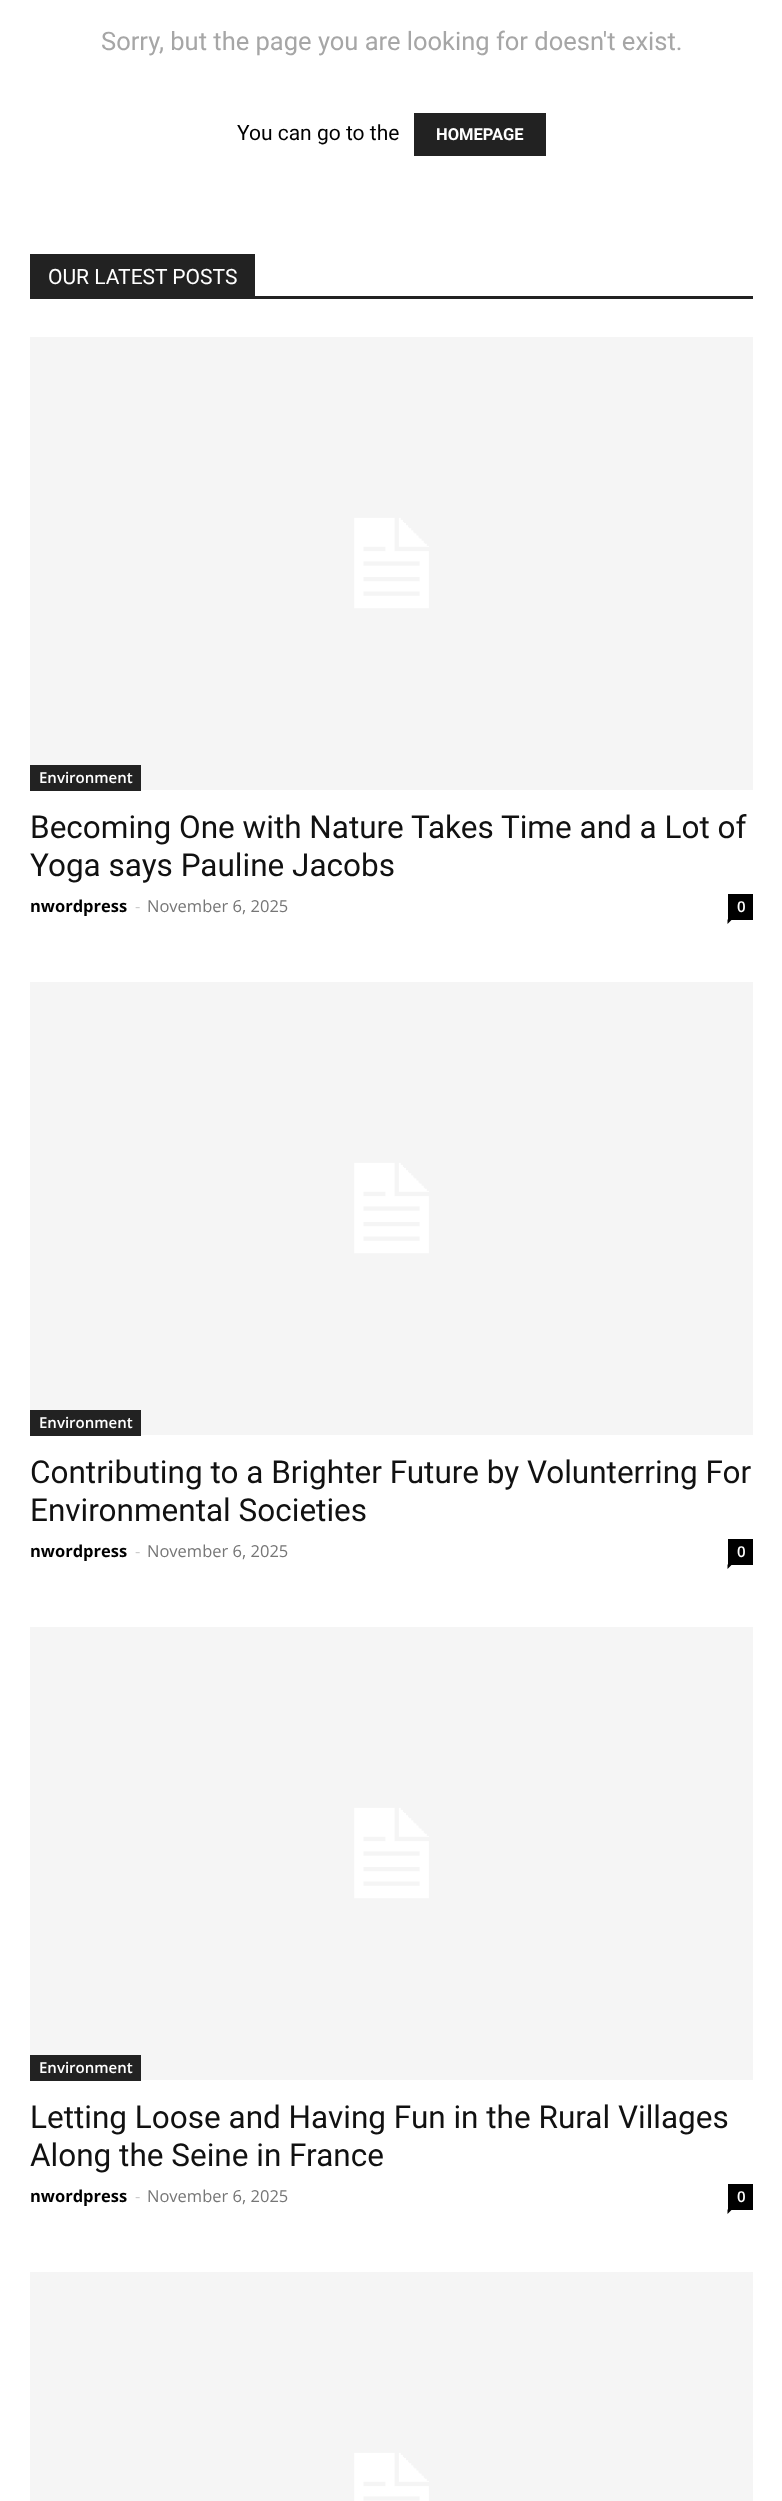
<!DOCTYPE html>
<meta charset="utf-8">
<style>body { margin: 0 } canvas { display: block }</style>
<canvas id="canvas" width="782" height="2501"></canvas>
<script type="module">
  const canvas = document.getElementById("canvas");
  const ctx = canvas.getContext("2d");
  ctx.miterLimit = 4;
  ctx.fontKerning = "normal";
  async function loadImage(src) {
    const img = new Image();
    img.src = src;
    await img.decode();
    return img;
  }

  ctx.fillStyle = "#ffffff";
  ctx.fillRect(0, 0, 782, 2501);
  ctx.font = "25.5px Roboto";
  ctx.fillStyle = "#a6a6a6";
  ctx.fillText("Sorry, but the page you are looking for doesn't exist.", 101, 50);
  ctx.font = "21px Roboto";
  ctx.fillStyle = "#000000";
  ctx.fillText("You can go to the", 237, 140);
  ctx.fillStyle = "#222222";
  ctx.fillRect(414, 113, 132, 43);
  ctx.font = "bold 16.5px Roboto";
  ctx.fillStyle = "#ffffff";
  ctx.fillText("HOMEPAGE", 436, 140);
  ctx.fillStyle = "#222222";
  ctx.fillRect(30, 296, 723, 3);
  ctx.fillRect(30, 254, 225, 42);
  ctx.font = "21px Roboto";
  ctx.fillStyle = "#ffffff";
  ctx.fillText("OUR LATEST POSTS", 48, 284);
  ctx.drawImage(await loadImage("img1.png"), 30, 337, 723, 453);
  ctx.fillStyle = "#222222";
  ctx.fillRect(30, 765, 111, 26);
  ctx.font = "600 15px Open Sans";
  ctx.fillStyle = "#ffffff";
  ctx.fillText("Environment", 39, 783);
  ctx.font = "31.5px Roboto";
  ctx.fillStyle = "#111111";
  ctx.fillText("Becoming One with Nature Takes Time and a Lot of", 30, 838);
  ctx.fillText("Yoga says Pauline Jacobs", 30, 876);
  ctx.font = "bold 16.5px Open Sans";
  ctx.fillStyle = "#000000";
  ctx.fillText("nwordpress", 30, 912);
  ctx.font = "16.5px Open Sans";
  ctx.fillStyle = "#cccccc";
  ctx.fillText("-", 135, 912);
  ctx.fillStyle = "#767676";
  ctx.fillText("November 6, 2025", 147, 912);
  ctx.fillStyle = "#000000";
  ctx.fillRect(728, 894, 25, 26);
  ctx.font = "600 15px Open Sans";
  ctx.fillStyle = "#ffffff";
  ctx.fillText("0", 737, 912);
  ctx.fillStyle = "#000000";
  ctx.beginPath();
  ctx.moveTo(727.5, 919.5);
  ctx.lineTo(732, 919.5);
  ctx.lineTo(727.5, 924);
  ctx.closePath();
  ctx.fill();
  ctx.drawImage(await loadImage("img1.png"), 30, 982, 723, 453);
  ctx.fillStyle = "#222222";
  ctx.fillRect(30, 1410, 111, 26);
  ctx.fillStyle = "#ffffff";
  ctx.fillText("Environment", 39, 1428);
  ctx.font = "31.5px Roboto";
  ctx.fillStyle = "#111111";
  ctx.fillText("Contributing to a Brighter Future by Volunterring For", 30, 1483);
  ctx.fillText("Environmental Societies", 30, 1521);
  ctx.font = "bold 16.5px Open Sans";
  ctx.fillStyle = "#000000";
  ctx.fillText("nwordpress", 30, 1557);
  ctx.font = "16.5px Open Sans";
  ctx.fillStyle = "#cccccc";
  ctx.fillText("-", 135, 1557);
  ctx.fillStyle = "#767676";
  ctx.fillText("November 6, 2025", 147, 1557);
  ctx.fillStyle = "#000000";
  ctx.fillRect(728, 1539, 25, 26);
  ctx.font = "600 15px Open Sans";
  ctx.fillStyle = "#ffffff";
  ctx.fillText("0", 737, 1557);
  ctx.fillStyle = "#000000";
  ctx.beginPath();
  ctx.moveTo(727.5, 1564.5);
  ctx.lineTo(732, 1564.5);
  ctx.lineTo(727.5, 1569);
  ctx.closePath();
  ctx.fill();
  ctx.drawImage(await loadImage("img1.png"), 30, 1627, 723, 453);
  ctx.fillStyle = "#222222";
  ctx.fillRect(30, 2055, 111, 26);
  ctx.fillStyle = "#ffffff";
  ctx.fillText("Environment", 39, 2073);
  ctx.font = "31.5px Roboto";
  ctx.fillStyle = "#111111";
  ctx.fillText("Letting Loose and Having Fun in the Rural Villages", 30, 2128);
  ctx.fillText("Along the Seine in France", 30, 2166);
  ctx.font = "bold 16.5px Open Sans";
  ctx.fillStyle = "#000000";
  ctx.fillText("nwordpress", 30, 2202);
  ctx.font = "16.5px Open Sans";
  ctx.fillStyle = "#cccccc";
  ctx.fillText("-", 135, 2202);
  ctx.fillStyle = "#767676";
  ctx.fillText("November 6, 2025", 147, 2202);
  ctx.fillStyle = "#000000";
  ctx.fillRect(728, 2184, 25, 26);
  ctx.font = "600 15px Open Sans";
  ctx.fillStyle = "#ffffff";
  ctx.fillText("0", 737, 2202);
  ctx.fillStyle = "#000000";
  ctx.beginPath();
  ctx.moveTo(727.5, 2209.5);
  ctx.lineTo(732, 2209.5);
  ctx.lineTo(727.5, 2214);
  ctx.closePath();
  ctx.fill();
  ctx.drawImage(await loadImage("img2.png"), 30, 2272, 723, 229);
</script>
